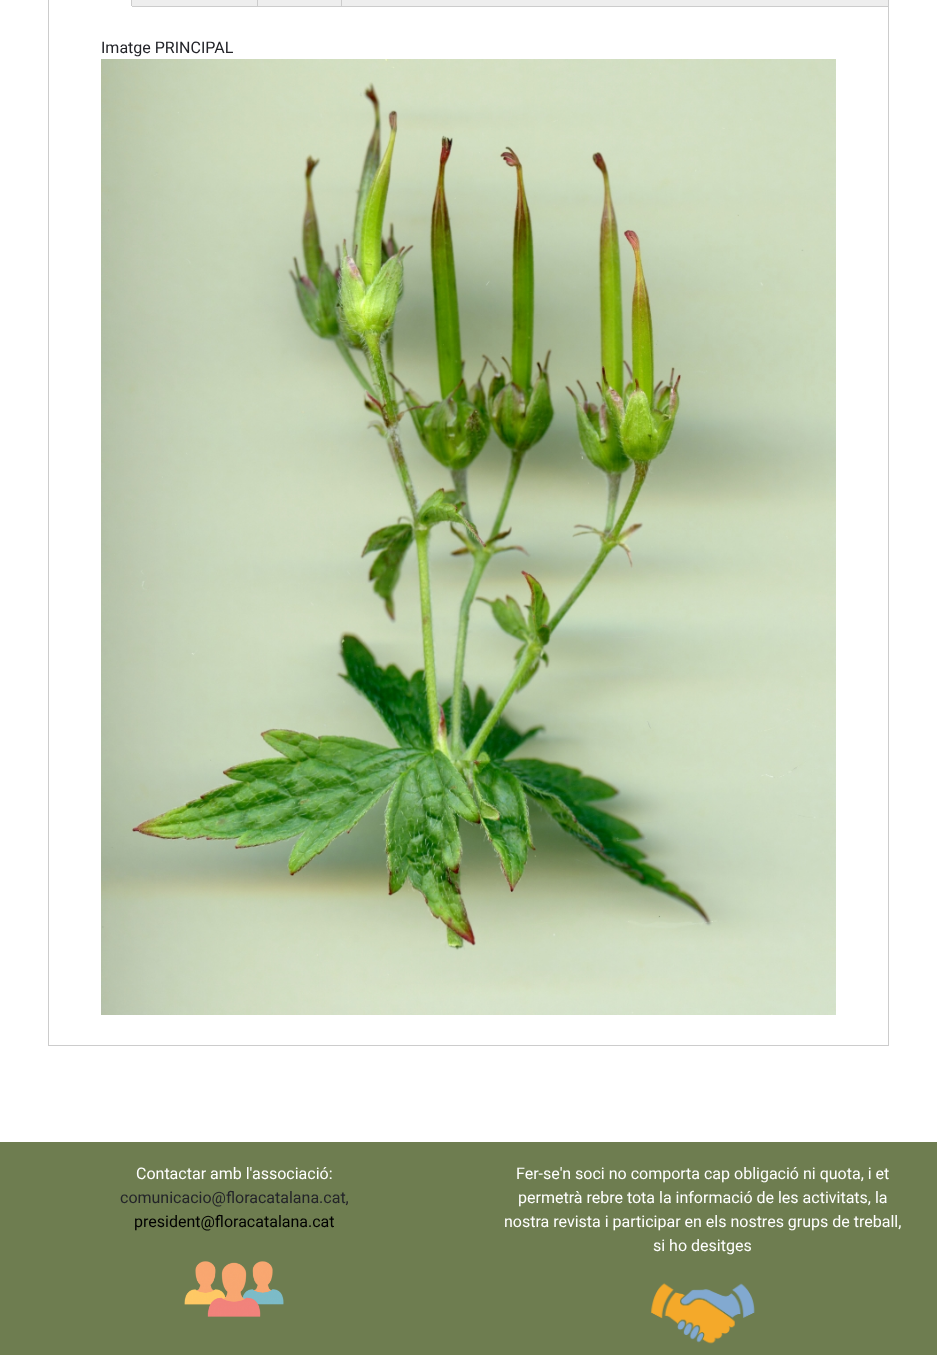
<!DOCTYPE html>
<meta charset="utf-8">
<style>body { margin: 0 } canvas { display: block }</style>
<canvas id="canvas" width="937" height="1355"></canvas>
<script type="module">
  const canvas = document.getElementById("canvas");
  const ctx = canvas.getContext("2d");
  ctx.miterLimit = 4;
  ctx.fontKerning = "normal";
  async function loadImage(src) {
    const img = new Image();
    img.src = src;
    await img.decode();
    return img;
  }

  ctx.fillStyle = "#ffffff";
  ctx.fillRect(0, 0, 937, 1355);
  ctx.strokeStyle = "#cccccc";
  ctx.strokeRect(48.5, -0.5, 840, 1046);
  ctx.fillStyle = "#eeeeee";
  ctx.fillRect(132, 0, 756, 6);
  ctx.fillStyle = "#cccccc";
  ctx.fillRect(132, 6, 756, 1);
  ctx.fillRect(131, 0, 1, 7);
  ctx.fillStyle = "#ffffff";
  ctx.fillRect(131, 6, 1, 1);
  ctx.fillStyle = "#cccccc";
  ctx.fillRect(257, 0, 1, 6);
  ctx.fillRect(341, 0, 1, 6);
  ctx.font = "16px Roboto";
  ctx.fillStyle = "#232429";
  ctx.fillText("Imatge PRINCIPAL", 101, 53);
  ctx.drawImage(await loadImage("img1.png"), 101, 59, 735, 956);
  ctx.fillStyle = "#6e7d50";
  ctx.fillRect(0, 1142, 937, 213);
  ctx.fillStyle = "#ffffff";
  ctx.fillText("Contactar amb l'associació:", 136, 1179);
  ctx.fillStyle = "#232429";
  ctx.fillText("comunicacio@floracatalana.cat,", 120, 1203);
  ctx.fillStyle = "#000000";
  ctx.fillText("president@floracatalana.cat", 134, 1227);
  ctx.drawImage(await loadImage("img2.png"), 184, 1261, 100, 56);
  ctx.fillStyle = "#ffffff";
  ctx.fillText("Fer-se'n soci no comporta cap obligació ni quota, i et", 516, 1179);
  ctx.fillText("permetrà rebre tota la informació de les activitats, la", 518, 1203);
  ctx.fillText("nostra revista i participar en els nostres grups de treball,", 504, 1227);
  ctx.fillText("si ho desitges", 653, 1251);
  ctx.drawImage(await loadImage("img3.png"), 651, 1283, 104, 61);
</script>
